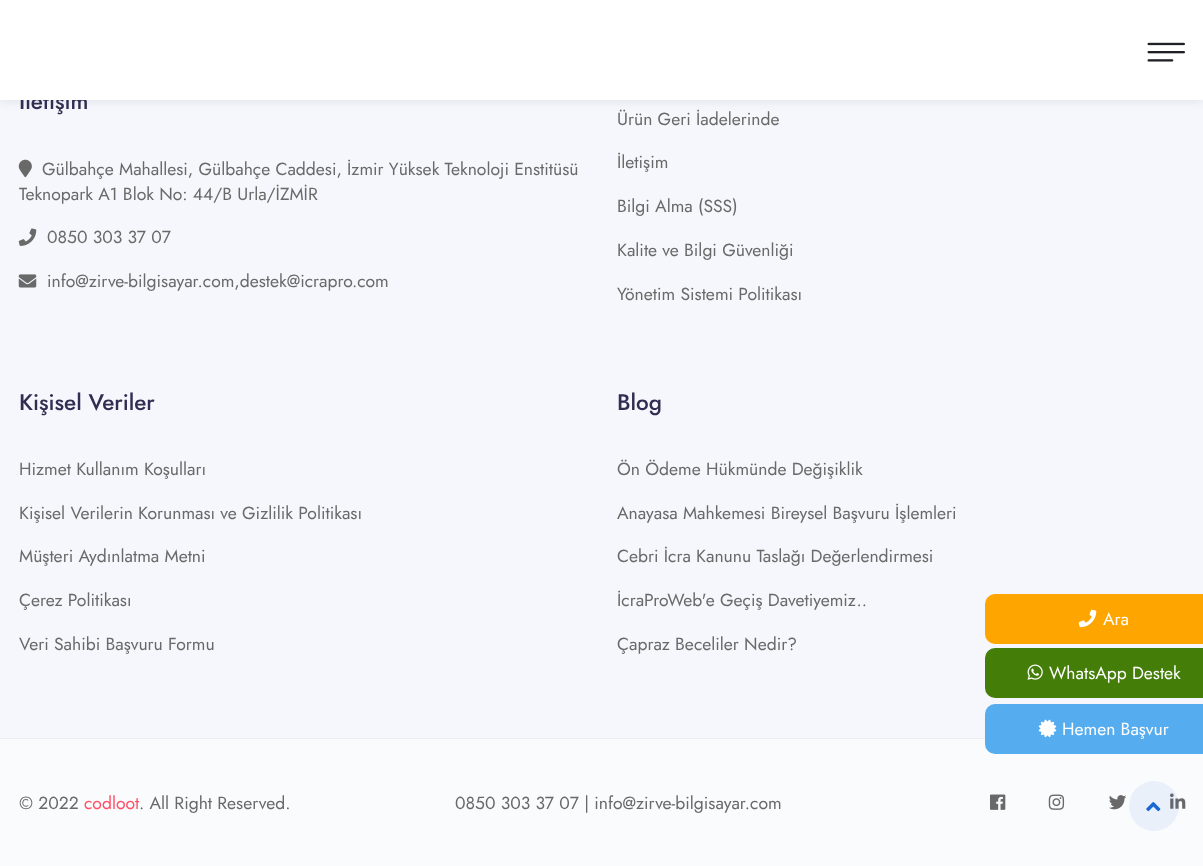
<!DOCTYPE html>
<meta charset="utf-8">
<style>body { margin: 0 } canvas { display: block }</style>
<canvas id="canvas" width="1203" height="866"></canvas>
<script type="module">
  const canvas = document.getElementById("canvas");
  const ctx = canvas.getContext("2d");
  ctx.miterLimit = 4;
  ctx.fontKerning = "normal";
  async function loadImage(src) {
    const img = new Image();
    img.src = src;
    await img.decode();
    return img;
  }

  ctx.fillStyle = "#f5f7fc";
  ctx.fillRect(0, 0, 1203, 866);
  ctx.fillStyle = "rgba(0, 0, 0, 0.1)";
  ctx.filter = "blur(6px)";
  ctx.beginPath();
  ctx.rect(0, 0, 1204, 100);
  ctx.fill();
  ctx.filter = "none";
  ctx.font = "500 22.5px Jost";
  ctx.fillStyle = "#2f2d51";
  ctx.fillText("İletişim", 19, 109);
  ctx.fillStyle = "#ffffff";
  ctx.fillRect(0, 0, 1203, 100);
  ctx.drawImage(await loadImage("img1.png"), 1147, 42, 38, 20);
  ctx.drawImage(await loadImage("img2.png"), 18, 159, 14, 19);
  ctx.font = "17.5px Jost";
  ctx.fillStyle = "#696969";
  ctx.fillText("Gülbahçe Mahallesi, Gülbahçe Caddesi, İzmir Yüksek Teknoloji Enstitüsü", 42, 175);
  ctx.fillText("Teknopark A1 Blok No: 44/B Urla/İZMİR", 19, 200);
  ctx.drawImage(await loadImage("img3.png"), 18, 228, 19, 18);
  ctx.fillText("0850 303 37 07", 47, 243);
  ctx.drawImage(await loadImage("img4.png"), 18, 274, 19, 14);
  ctx.fillText("info@zirve-bilgisayar.com,destek@icrapro.com", 47, 287);
  ctx.fillText("Ürün Geri İadelerinde", 617, 125);
  ctx.fillText("İletişim", 617, 168);
  ctx.fillText("Bilgi Alma (SSS)", 617, 212);
  ctx.fillText("Kalite ve Bilgi Güvenliği", 617, 256);
  ctx.fillText("Yönetim Sistemi Politikası", 617, 300);
  ctx.font = "500 22.5px Jost";
  ctx.fillStyle = "#2f2d51";
  ctx.fillText("Kişisel Veriler", 19, 410);
  ctx.font = "17.5px Jost";
  ctx.fillStyle = "#696969";
  ctx.fillText("Hizmet Kullanım Koşulları", 19, 475);
  ctx.fillText("Kişisel Verilerin Korunması ve Gizlilik Politikası", 19, 519);
  ctx.fillText("Müşteri Aydınlatma Metni", 19, 562);
  ctx.fillText("Çerez Politikası", 19, 606);
  ctx.fillText("Veri Sahibi Başvuru Formu", 19, 650);
  ctx.font = "500 22.5px Jost";
  ctx.fillStyle = "#2f2d51";
  ctx.fillText("Blog", 617, 410);
  ctx.font = "17.5px Jost";
  ctx.fillStyle = "#696969";
  ctx.fillText("Ön Ödeme Hükmünde Değişiklik", 617, 475);
  ctx.fillText("Anayasa Mahkemesi Bireysel Başvuru İşlemleri", 617, 519);
  ctx.fillText("Cebri İcra Kanunu Taslağı Değerlendirmesi", 617, 562);
  ctx.fillText("İcraProWeb'e Geçiş Davetiyemiz..", 617, 606);
  ctx.fillText("Çapraz Beceliler Nedir?", 617, 650);
  ctx.fillStyle = "#f9fbfd";
  ctx.fillRect(0, 739, 1203, 127);
  ctx.fillStyle = "#ecedf2";
  ctx.fillRect(0, 738, 985, 1);
  ctx.fillStyle = "#696969";
  ctx.fillText("© 2022", 19, 809);
  ctx.fillStyle = "#ff5066";
  ctx.fillText("codloot", 84, 809);
  ctx.fillStyle = "#696969";
  ctx.fillText(". All Right Reserved.", 139, 809);
  ctx.fillText("0850 303 37 07 | info@zirve-bilgisayar.com", 455, 809);
  ctx.drawImage(await loadImage("img5.png"), 990, 794, 16, 16);
  ctx.drawImage(await loadImage("img6.png"), 1048, 794, 17, 16);
  ctx.drawImage(await loadImage("img7.png"), 1109, 795, 18, 15);
  ctx.drawImage(await loadImage("img8.png"), 1170, 793, 16, 16);
  ctx.fillStyle = "#ffa500";
  ctx.beginPath();
  ctx.roundRect(985, 594, 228, 50, 10);
  ctx.fill();
  ctx.drawImage(await loadImage("img9.png"), 1078, 609, 19, 19);
  ctx.fillStyle = "#ffffff";
  ctx.fillText("Ara", 1103, 625);
  ctx.fillStyle = "#447e08";
  ctx.beginPath();
  ctx.roundRect(985, 648, 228, 50, 10);
  ctx.fill();
  ctx.drawImage(await loadImage("img10.png"), 1027, 664, 16, 16);
  ctx.fillStyle = "#ffffff";
  ctx.fillText("WhatsApp Destek", 1049, 679);
  ctx.fillStyle = "#55acee";
  ctx.beginPath();
  ctx.roundRect(985, 704, 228, 50, 10);
  ctx.fill();
  ctx.drawImage(await loadImage("img11.png"), 1038, 719, 19, 19);
  ctx.fillStyle = "#ffffff";
  ctx.fillText("Hemen Başvur", 1062, 735);
  ctx.fillStyle = "rgba(25, 103, 210, 0.07)";
  ctx.beginPath();
  ctx.arc(1154, 806, 25, 0, Math.PI * 2);
  ctx.fill();
  ctx.drawImage(await loadImage("img12.png"), 1146, 802, 15, 10);
</script>
